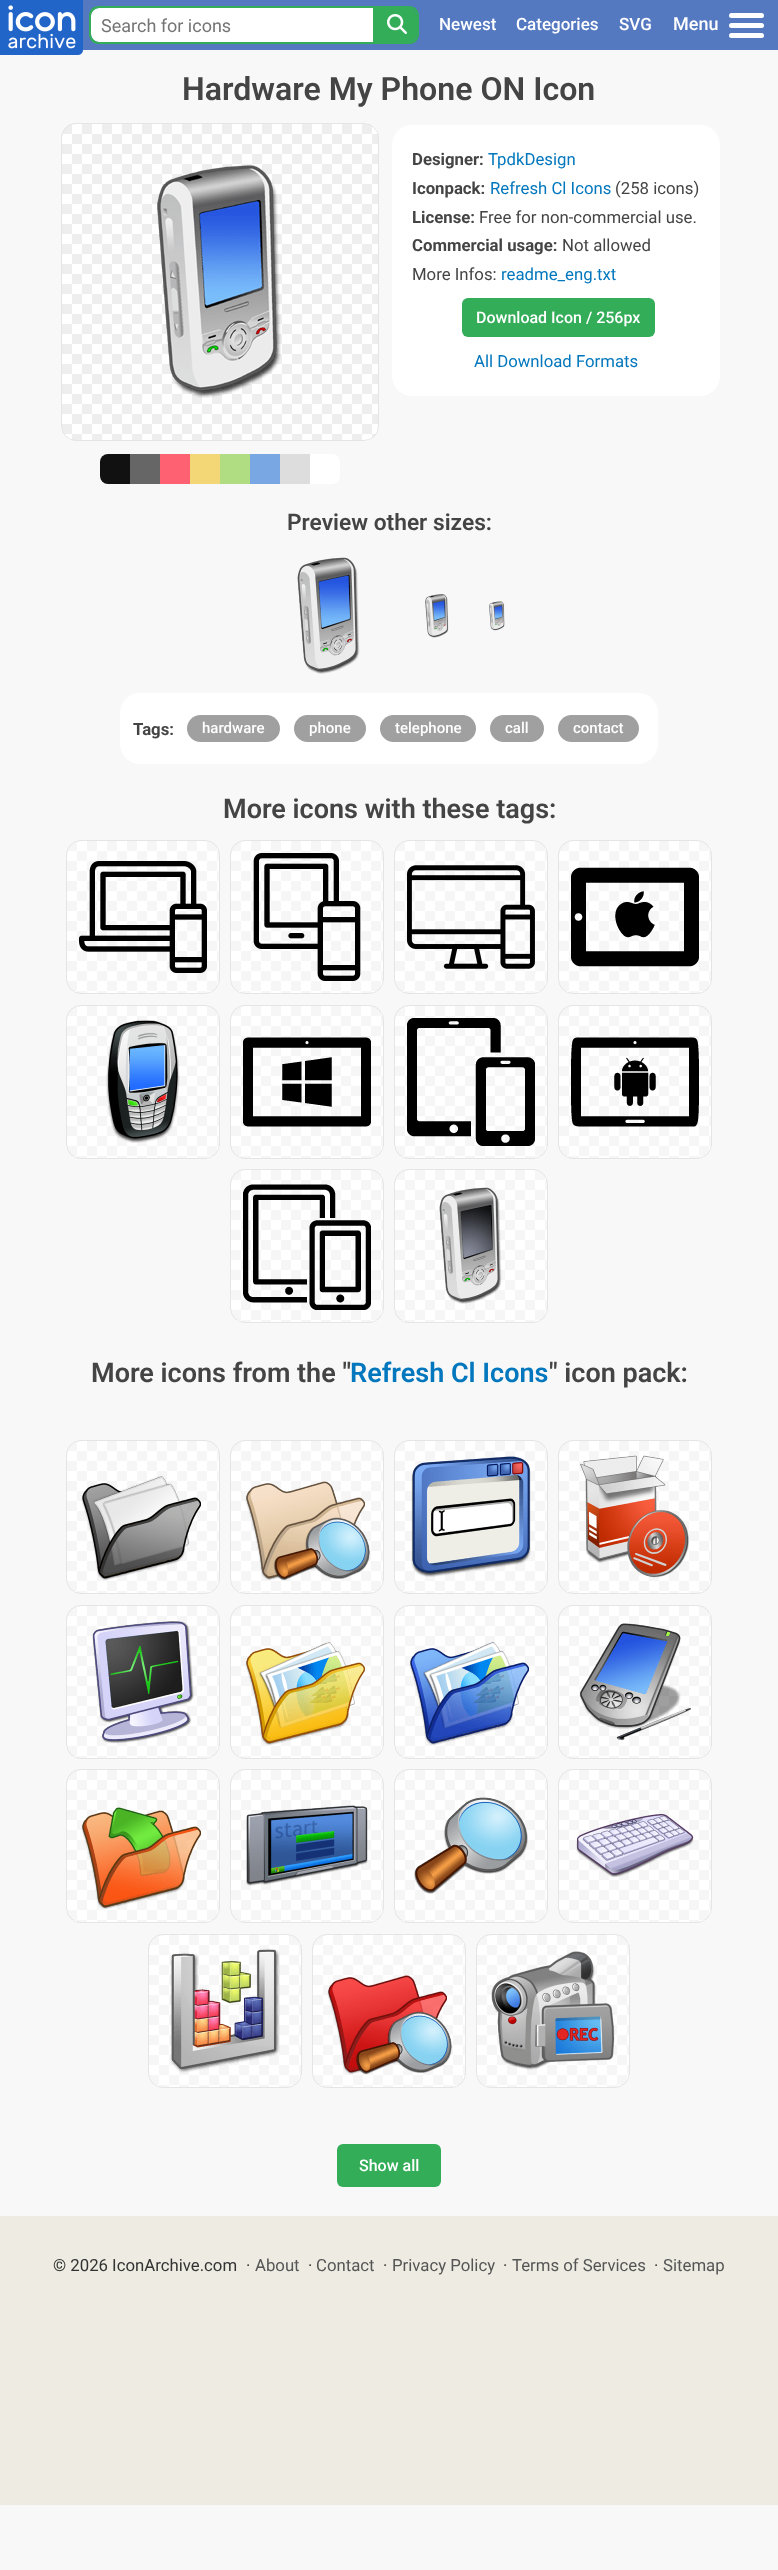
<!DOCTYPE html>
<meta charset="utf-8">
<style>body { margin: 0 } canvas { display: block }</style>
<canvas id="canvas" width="778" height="2570"></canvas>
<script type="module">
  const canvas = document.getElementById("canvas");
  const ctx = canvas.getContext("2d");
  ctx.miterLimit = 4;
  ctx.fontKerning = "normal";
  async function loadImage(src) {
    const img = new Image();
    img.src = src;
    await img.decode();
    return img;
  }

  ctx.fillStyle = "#f8f8f8";
  ctx.fillRect(0, 0, 778, 2570);
  ctx.fillStyle = "#5479c1";
  ctx.fillRect(83, 0, 695, 50);
  ctx.drawImage(await loadImage("img1.png"), 0, 0, 83, 55);
  ctx.fillStyle = "#ffffff";
  ctx.beginPath();
  ctx.roundRect(91, 8, 282, 34, [8, 0, 0, 8]);
  ctx.fill();
  ctx.fillStyle = "#34ad59";
  ctx.beginPath();
  ctx.moveTo(99, 6);
  ctx.lineTo(373, 6);
  ctx.lineTo(373, 44);
  ctx.lineTo(99, 44);
  ctx.bezierCurveTo(93, 44, 89, 40, 89, 34);
  ctx.lineTo(89, 16);
  ctx.bezierCurveTo(89, 10, 93, 6, 99, 6);
  ctx.closePath();
  ctx.moveTo(99, 8);
  ctx.lineTo(373, 8);
  ctx.lineTo(373, 42);
  ctx.lineTo(99, 42);
  ctx.bezierCurveTo(95, 42, 91, 38, 91, 34);
  ctx.lineTo(91, 16);
  ctx.bezierCurveTo(91, 12, 95, 8, 99, 8);
  ctx.closePath();
  ctx.fill("evenodd");
  ctx.font = "18px Roboto";
  ctx.fillStyle = "#757575";
  ctx.fillText("Search for icons", 101, 32);
  ctx.fillStyle = "#34ad59";
  ctx.beginPath();
  ctx.roundRect(373, 8, 44, 34, [0, 8, 8, 0]);
  ctx.fill();
  ctx.beginPath();
  ctx.moveTo(373, 6);
  ctx.lineTo(409, 6);
  ctx.bezierCurveTo(415, 6, 419, 10, 419, 16);
  ctx.lineTo(419, 34);
  ctx.bezierCurveTo(419, 40, 415, 44, 409, 44);
  ctx.lineTo(373, 44);
  ctx.closePath();
  ctx.moveTo(373, 8);
  ctx.lineTo(403, 8);
  ctx.bezierCurveTo(418, 8, 417, 11, 417, 25);
  ctx.bezierCurveTo(417, 39, 418, 42, 403, 42);
  ctx.lineTo(373, 42);
  ctx.closePath();
  ctx.fill("evenodd");
  ctx.drawImage(await loadImage("img2.png"), 387, 14, 20, 20);
  ctx.font = "500 17px Roboto";
  ctx.fillStyle = "#ffffff";
  ctx.fillText("Newest", 439, 30);
  ctx.fillText("Categories", 516, 30);
  ctx.fillText("SVG", 619, 30);
  ctx.font = "500 18px Roboto";
  ctx.fillText("Menu", 673, 30);
  ctx.beginPath();
  ctx.roundRect(729, 13, 35, 5, 2.5);
  ctx.fill();
  ctx.beginPath();
  ctx.roundRect(729, 23, 35, 5, 2.5);
  ctx.fill();
  ctx.beginPath();
  ctx.roundRect(729, 33, 35, 5, 2.5);
  ctx.fill();
  ctx.font = "600 32.1px Roboto";
  ctx.fillStyle = "#444444";
  ctx.fillText("Hardware My Phone ON Icon", 182, 100);
  ctx.drawImage(await loadImage("img3.png"), 61, 123, 318, 318);
  ctx.beginPath();
  ctx.roundRect(61.5, 123.5, 317, 317, 14.5);
  ctx.strokeStyle = "#e5e5e5";
  ctx.stroke();
  ctx.drawImage(await loadImage("img4.png"), 157, 165, 124, 233);
  ctx.fillStyle = "#111111";
  ctx.beginPath();
  ctx.roundRect(100, 454, 30, 30, [8, 0, 0, 8]);
  ctx.fill();
  ctx.fillStyle = "#666666";
  ctx.fillRect(130, 454, 30, 30);
  ctx.fillStyle = "#fe6171";
  ctx.fillRect(160, 454, 30, 30);
  ctx.fillStyle = "#f3d776";
  ctx.fillRect(190, 454, 30, 30);
  ctx.fillStyle = "#b0dc82";
  ctx.fillRect(220, 454, 30, 30);
  ctx.fillStyle = "#79a7e4";
  ctx.fillRect(250, 454, 30, 30);
  ctx.fillStyle = "#dddddd";
  ctx.fillRect(280, 454, 30, 30);
  ctx.fillStyle = "#ffffff";
  ctx.beginPath();
  ctx.roundRect(310, 454, 30, 30, [0, 8, 8, 0]);
  ctx.fill();
  ctx.beginPath();
  ctx.roundRect(392, 125, 328, 271, 20);
  ctx.fill();
  ctx.font = "bold 16.75px Roboto";
  ctx.fillStyle = "#444444";
  ctx.fillText("Designer:", 412, 165);
  ctx.font = "16.75px Roboto";
  ctx.fillStyle = "#0277bd";
  ctx.fillText("TpdkDesign", 488, 165);
  ctx.font = "bold 16.75px Roboto";
  ctx.fillStyle = "#444444";
  ctx.fillText("Iconpack:", 412, 194);
  ctx.font = "16.75px Roboto";
  ctx.fillStyle = "#0277bd";
  ctx.fillText("Refresh Cl Icons", 490, 194);
  ctx.fillStyle = "#444444";
  ctx.fillText("(258 icons)", 615, 194);
  ctx.font = "bold 16.75px Roboto";
  ctx.fillText("License:", 412, 223);
  ctx.font = "16.75px Roboto";
  ctx.fillText("Free for non-commercial use.", 479, 223);
  ctx.font = "bold 16.75px Roboto";
  ctx.fillText("Commercial usage:", 412, 251);
  ctx.font = "16.75px Roboto";
  ctx.fillText("Not allowed", 562, 251);
  ctx.fillText("More Infos:", 412, 280);
  ctx.fillStyle = "#0277bd";
  ctx.fillText("readme_eng.txt", 501, 280);
  ctx.fillStyle = "#34ad59";
  ctx.beginPath();
  ctx.roundRect(462, 298, 193, 39, 6);
  ctx.fill();
  ctx.font = "500 16px Roboto";
  ctx.fillStyle = "#ffffff";
  ctx.fillText("Download Icon / 256px", 476, 323);
  ctx.font = "16.75px Roboto";
  ctx.fillStyle = "#0277bd";
  ctx.fillText("All Download Formats", 474, 367);
  ctx.font = "600 22.75px Roboto";
  ctx.fillStyle = "#444444";
  ctx.fillText("Preview other sizes:", 287, 530);
  ctx.drawImage(await loadImage("img5.png"), 297, 557, 63, 117);
  ctx.drawImage(await loadImage("img6.png"), 425, 594, 24, 44);
  ctx.drawImage(await loadImage("img7.png"), 489, 601, 16, 30);
  ctx.fillStyle = "#ffffff";
  ctx.beginPath();
  ctx.roundRect(120, 693, 538, 71, 20);
  ctx.fill();
  ctx.font = "bold 16.75px Roboto";
  ctx.fillStyle = "#444444";
  ctx.fillText("Tags:", 133, 735);
  ctx.fillStyle = "#a0a0a0";
  ctx.beginPath();
  ctx.roundRect(187, 715, 93, 27, 13.5);
  ctx.fill();
  ctx.font = "500 15px Roboto";
  ctx.fillStyle = "#ffffff";
  ctx.fillText("hardware", 202, 733);
  ctx.fillStyle = "#a0a0a0";
  ctx.beginPath();
  ctx.roundRect(294, 715, 72, 27, 13.5);
  ctx.fill();
  ctx.fillStyle = "#ffffff";
  ctx.fillText("phone", 309, 733);
  ctx.fillStyle = "#a0a0a0";
  ctx.beginPath();
  ctx.roundRect(380, 715, 96, 27, 13.5);
  ctx.fill();
  ctx.fillStyle = "#ffffff";
  ctx.fillText("telephone", 395, 733);
  ctx.fillStyle = "#a0a0a0";
  ctx.beginPath();
  ctx.roundRect(490, 715, 54, 27, 13.5);
  ctx.fill();
  ctx.fillStyle = "#ffffff";
  ctx.fillText("call", 505, 733);
  ctx.fillStyle = "#a0a0a0";
  ctx.beginPath();
  ctx.roundRect(558, 715, 81, 27, 13.5);
  ctx.fill();
  ctx.fillStyle = "#ffffff";
  ctx.fillText("contact", 573, 733);
  ctx.font = "600 27px Roboto";
  ctx.fillStyle = "#444444";
  ctx.fillText("More icons with these tags:", 223, 818);
  ctx.drawImage(await loadImage("img8.png"), 66, 840, 154, 154);
  ctx.beginPath();
  ctx.roundRect(66.5, 840.5, 153, 153, 14.5);
  ctx.stroke();
  ctx.drawImage(await loadImage("img9.png"), 79, 861, 128, 112);
  ctx.drawImage(await loadImage("img8.png"), 230, 840, 154, 154);
  ctx.beginPath();
  ctx.roundRect(230.5, 840.5, 153, 153, 14.5);
  ctx.stroke();
  ctx.drawImage(await loadImage("img10.png"), 253, 853, 108, 128);
  ctx.drawImage(await loadImage("img8.png"), 394, 840, 154, 154);
  ctx.beginPath();
  ctx.roundRect(394.5, 840.5, 153, 153, 14.5);
  ctx.stroke();
  ctx.drawImage(await loadImage("img11.png"), 407, 865, 128, 104);
  ctx.drawImage(await loadImage("img8.png"), 558, 840, 154, 154);
  ctx.beginPath();
  ctx.roundRect(558.5, 840.5, 153, 153, 14.5);
  ctx.stroke();
  ctx.drawImage(await loadImage("img12.png"), 571, 867, 128, 100);
  ctx.drawImage(await loadImage("img13.png"), 66, 1005, 154, 154);
  ctx.beginPath();
  ctx.roundRect(66.5, 1005.5, 153, 153, 14.5);
  ctx.stroke();
  ctx.drawImage(await loadImage("img14.png"), 106, 1020, 74, 123);
  ctx.drawImage(await loadImage("img13.png"), 230, 1005, 154, 154);
  ctx.beginPath();
  ctx.roundRect(230.5, 1005.5, 153, 153, 14.5);
  ctx.stroke();
  ctx.drawImage(await loadImage("img15.png"), 243, 1037, 128, 90);
  ctx.drawImage(await loadImage("img13.png"), 394, 1005, 154, 154);
  ctx.beginPath();
  ctx.roundRect(394.5, 1005.5, 153, 153, 14.5);
  ctx.stroke();
  ctx.drawImage(await loadImage("img16.png"), 407, 1018, 128, 128);
  ctx.drawImage(await loadImage("img13.png"), 558, 1005, 154, 154);
  ctx.beginPath();
  ctx.roundRect(558.5, 1005.5, 153, 153, 14.5);
  ctx.stroke();
  ctx.drawImage(await loadImage("img17.png"), 571, 1037, 128, 90);
  ctx.drawImage(await loadImage("img8.png"), 230, 1169, 154, 154);
  ctx.beginPath();
  ctx.roundRect(230.5, 1169.5, 153, 153, 14.5);
  ctx.stroke();
  ctx.drawImage(await loadImage("img18.png"), 243, 1184, 128, 126);
  ctx.drawImage(await loadImage("img8.png"), 394, 1169, 154, 154);
  ctx.beginPath();
  ctx.roundRect(394.5, 1169.5, 153, 153, 14.5);
  ctx.stroke();
  ctx.drawImage(await loadImage("img19.png"), 439, 1187, 63, 117);
  ctx.fillText("More icons from the \"", 91, 1382);
  ctx.fillStyle = "#0277bd";
  ctx.fillText("Refresh Cl Icons", 350, 1382);
  ctx.fillStyle = "#444444";
  ctx.fillText("\" icon pack:", 549, 1382);
  ctx.drawImage(await loadImage("img8.png"), 66, 1440, 154, 154);
  ctx.beginPath();
  ctx.roundRect(66.5, 1440.5, 153, 153, 14.5);
  ctx.stroke();
  ctx.drawImage(await loadImage("img20.png"), 81, 1476, 120, 105);
  ctx.drawImage(await loadImage("img8.png"), 230, 1440, 154, 154);
  ctx.beginPath();
  ctx.roundRect(230.5, 1440.5, 153, 153, 14.5);
  ctx.stroke();
  ctx.drawImage(await loadImage("img21.png"), 245, 1481, 125, 100);
  ctx.drawImage(await loadImage("img8.png"), 394, 1440, 154, 154);
  ctx.beginPath();
  ctx.roundRect(394.5, 1440.5, 153, 153, 14.5);
  ctx.stroke();
  ctx.drawImage(await loadImage("img22.png"), 411, 1456, 120, 121);
  ctx.drawImage(await loadImage("img8.png"), 558, 1440, 154, 154);
  ctx.beginPath();
  ctx.roundRect(558.5, 1440.5, 153, 153, 14.5);
  ctx.stroke();
  ctx.drawImage(await loadImage("img23.png"), 580, 1455, 109, 123);
  ctx.drawImage(await loadImage("img8.png"), 66, 1605, 154, 154);
  ctx.beginPath();
  ctx.roundRect(66.5, 1605.5, 153, 153, 14.5);
  ctx.stroke();
  ctx.drawImage(await loadImage("img24.png"), 92, 1621, 102, 123);
  ctx.drawImage(await loadImage("img8.png"), 230, 1605, 154, 154);
  ctx.beginPath();
  ctx.roundRect(230.5, 1605.5, 153, 153, 14.5);
  ctx.stroke();
  ctx.drawImage(await loadImage("img25.png"), 245, 1642, 120, 103);
  ctx.drawImage(await loadImage("img8.png"), 394, 1605, 154, 154);
  ctx.beginPath();
  ctx.roundRect(394.5, 1605.5, 153, 153, 14.5);
  ctx.stroke();
  ctx.drawImage(await loadImage("img26.png"), 409, 1642, 120, 103);
  ctx.drawImage(await loadImage("img8.png"), 558, 1605, 154, 154);
  ctx.beginPath();
  ctx.roundRect(558.5, 1605.5, 153, 153, 14.5);
  ctx.stroke();
  ctx.drawImage(await loadImage("img27.png"), 579, 1623, 112, 118);
  ctx.drawImage(await loadImage("img28.png"), 66, 1769, 154, 154);
  ctx.beginPath();
  ctx.roundRect(66.5, 1769.5, 153, 153, 14.5);
  ctx.stroke();
  ctx.drawImage(await loadImage("img29.png"), 81, 1807, 120, 102);
  ctx.drawImage(await loadImage("img28.png"), 230, 1769, 154, 154);
  ctx.beginPath();
  ctx.roundRect(230.5, 1769.5, 153, 153, 14.5);
  ctx.stroke();
  ctx.drawImage(await loadImage("img30.png"), 246, 1805, 122, 81);
  ctx.drawImage(await loadImage("img28.png"), 394, 1769, 154, 154);
  ctx.beginPath();
  ctx.roundRect(394.5, 1769.5, 153, 153, 14.5);
  ctx.stroke();
  ctx.drawImage(await loadImage("img31.png"), 414, 1797, 114, 97);
  ctx.drawImage(await loadImage("img28.png"), 558, 1769, 154, 154);
  ctx.beginPath();
  ctx.roundRect(558.5, 1769.5, 153, 153, 14.5);
  ctx.stroke();
  ctx.drawImage(await loadImage("img32.png"), 576, 1814, 118, 64);
  ctx.drawImage(await loadImage("img8.png"), 148, 1934, 154, 154);
  ctx.beginPath();
  ctx.roundRect(148.5, 1934.5, 153, 153, 14.5);
  ctx.stroke();
  ctx.drawImage(await loadImage("img33.png"), 170, 1948, 110, 125);
  ctx.drawImage(await loadImage("img8.png"), 312, 1934, 154, 154);
  ctx.beginPath();
  ctx.roundRect(312.5, 1934.5, 153, 153, 14.5);
  ctx.stroke();
  ctx.drawImage(await loadImage("img34.png"), 327, 1975, 125, 100);
  ctx.drawImage(await loadImage("img8.png"), 476, 1934, 154, 154);
  ctx.beginPath();
  ctx.roundRect(476.5, 1934.5, 153, 153, 14.5);
  ctx.stroke();
  ctx.drawImage(await loadImage("img35.png"), 491, 1951, 124, 119);
  ctx.fillStyle = "#34ad59";
  ctx.beginPath();
  ctx.roundRect(337, 2144, 104, 43, 6);
  ctx.fill();
  ctx.font = "500 16px Roboto";
  ctx.fillStyle = "#ffffff";
  ctx.fillText("Show all", 359, 2171);
  ctx.fillStyle = "#eeece2";
  ctx.fillRect(0, 2216, 778, 289);
  ctx.font = "16.75px Roboto";
  ctx.fillStyle = "#333333";
  ctx.fillText("© 2026 IconArchive.com", 53, 2271);
  ctx.fillText("·", 246, 2271);
  ctx.fillStyle = "#555555";
  ctx.fillText("About", 255, 2271);
  ctx.fillStyle = "#333333";
  ctx.fillText("·", 308, 2271);
  ctx.fillStyle = "#555555";
  ctx.fillText("Contact", 316, 2271);
  ctx.fillStyle = "#333333";
  ctx.fillText("·", 383, 2271);
  ctx.fillStyle = "#555555";
  ctx.fillText("Privacy Policy", 392, 2271);
  ctx.fillStyle = "#333333";
  ctx.fillText("·", 503, 2271);
  ctx.fillStyle = "#555555";
  ctx.fillText("Terms of Services", 512, 2271);
  ctx.fillStyle = "#333333";
  ctx.fillText("·", 654, 2271);
  ctx.fillStyle = "#555555";
  ctx.fillText("Sitemap", 663, 2271);
</script>
